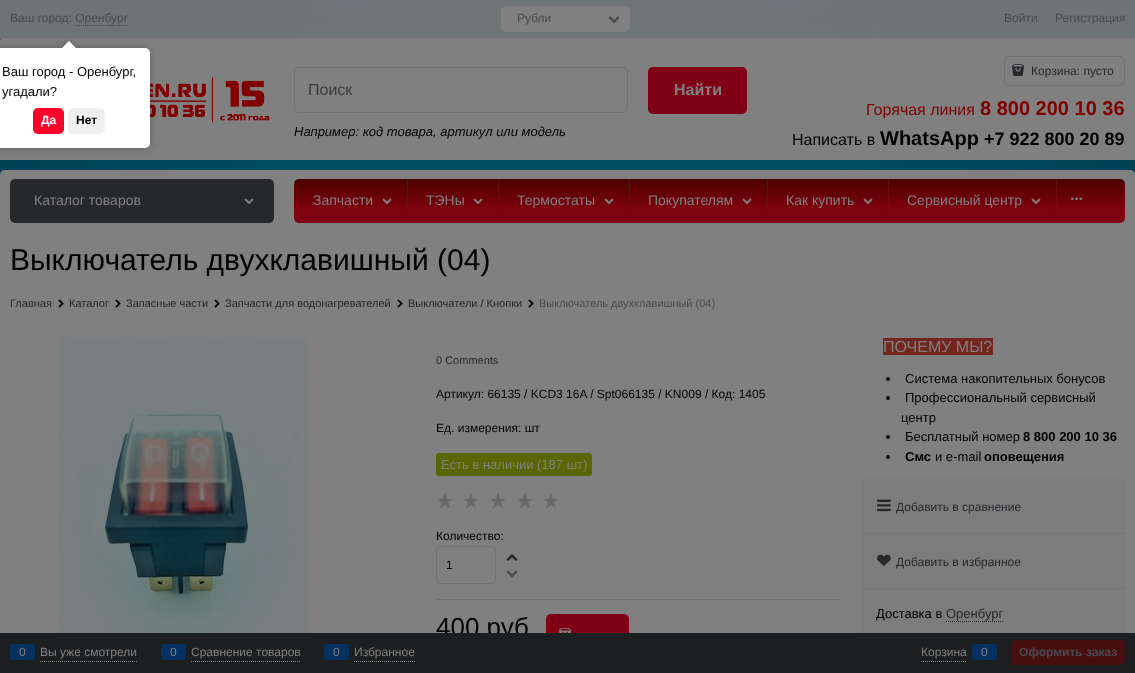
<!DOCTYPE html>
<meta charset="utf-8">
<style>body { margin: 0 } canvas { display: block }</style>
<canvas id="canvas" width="1135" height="673"></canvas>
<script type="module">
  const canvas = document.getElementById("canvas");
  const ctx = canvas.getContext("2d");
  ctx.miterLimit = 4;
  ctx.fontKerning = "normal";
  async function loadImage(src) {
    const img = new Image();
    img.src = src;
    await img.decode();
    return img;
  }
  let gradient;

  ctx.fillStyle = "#ffffff";
  ctx.fillRect(0, 0, 1135, 673);
  ctx.drawImage(await loadImage("img1.png"), 0, 0, 1135, 175);
  ctx.fillStyle = "rgba(122, 122, 122, 0.9)";
  ctx.fillRect(0, 0, 1135, 39);
  ctx.font = "12px Liberation Sans";
  ctx.fillStyle = "#4a4b4e";
  ctx.fillText("Ваш город: Оренбург", 10, 22);
  ctx.beginPath();
  ctx.moveTo(75, 25.5);
  ctx.lineTo(128, 25.5);
  ctx.strokeStyle = "#4a4b4e";
  ctx.setLineDash([1, 1]);
  ctx.stroke();
  ctx.fillStyle = "#808080";
  ctx.beginPath();
  ctx.roundRect(501, 6, 129, 26, 5);
  ctx.fill();
  ctx.fillStyle = "#4a4b4e";
  ctx.fillText("Рубли", 517, 22);
  ctx.drawImage(await loadImage("img2.png"), 608, 16, 12, 8);
  ctx.fillText("Войти", 1004, 22);
  ctx.fillText("Регистрация", 1055, 22);
  ctx.fillStyle = "#685143";
  ctx.fillRect(0, 39, 1, 1);
  ctx.drawImage(await loadImage("img3.png"), 150, 77, 120, 46);
  ctx.beginPath();
  ctx.roundRect(294.5, 67.5, 333, 45, 4.5);
  ctx.strokeStyle = "#717272";
  ctx.setLineDash([]);
  ctx.stroke();
  ctx.font = "16px Liberation Sans";
  ctx.fillStyle = "#3b3b3b";
  ctx.fillText("Поиск", 308, 95);
  ctx.fillStyle = "#800115";
  ctx.beginPath();
  ctx.roundRect(648, 67, 99, 47, 5);
  ctx.fill();
  ctx.font = "bold 16px Liberation Sans";
  ctx.fillStyle = "#808080";
  ctx.fillText("Найти", 674, 95);
  ctx.font = "italic 13px Liberation Sans";
  ctx.fillStyle = "#000000";
  ctx.fillText("Например: код товара, артикул или модель", 294, 136);
  ctx.beginPath();
  ctx.roundRect(1004.5, 56.5, 120, 29, 4.5);
  ctx.stroke();
  ctx.drawImage(await loadImage("img4.png"), 1012, 64, 12, 12);
  ctx.font = "12px Liberation Sans";
  ctx.fillStyle = "#26282c";
  ctx.fillText("Корзина: пусто", 1031, 75);
  ctx.font = "16px Liberation Sans";
  ctx.fillStyle = "#800000";
  ctx.fillText("Горячая линия", 866, 115);
  ctx.font = "bold 20px Liberation Sans";
  ctx.fillText("8 800 200 10 36", 980, 115);
  ctx.font = "16px Liberation Sans";
  ctx.fillStyle = "#000000";
  ctx.fillText("Написать в", 792, 145);
  ctx.font = "bold 20px Liberation Sans";
  ctx.fillText("WhatsApp", 880, 145);
  ctx.font = "bold 18px Liberation Sans";
  ctx.fillText("+7 922 800 20 89", 984, 145);
  ctx.fillStyle = "#808080";
  ctx.beginPath();
  ctx.roundRect(0, 170, 1135, 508, 5);
  ctx.fill();
  ctx.fillStyle = "#26282c";
  ctx.beginPath();
  ctx.roundRect(10, 179, 264, 44, 5);
  ctx.fill();
  ctx.font = "14px Liberation Sans";
  ctx.fillStyle = "#808080";
  ctx.fillText("Каталог товаров", 34, 205);
  ctx.drawImage(await loadImage("img5.png"), 244, 198, 10, 7);
  gradient = ctx.createLinearGradient(710, 179, 710, 223);
  gradient.addColorStop(0, "#440001");
  gradient.addColorStop(0.11, "#580103");
  gradient.addColorStop(0.14, "#5a0104");
  gradient.addColorStop(0.19, "#5b0104");
  gradient.addColorStop(0.32, "#640007");
  gradient.addColorStop(0.41, "#6a020a");
  gradient.addColorStop(0.43, "#6d0109");
  gradient.addColorStop(0.62, "#79010e");
  gradient.addColorStop(0.65, "#7d020e");
  gradient.addColorStop(0.73, "#800211");
  gradient.addColorStop(0.95, "#800116");
  gradient.addColorStop(1, "#800115");
  ctx.fillStyle = gradient;
  ctx.beginPath();
  ctx.roundRect(294, 179, 831, 44, 5);
  ctx.fill();
  ctx.fillStyle = "#808080";
  ctx.fillText("Запчасти", 313, 205);
  ctx.drawImage(await loadImage("img6.png"), 382, 198, 10, 7);
  gradient = ctx.createLinearGradient(408, 179, 408, 223);
  gradient.addColorStop(0, "rgba(128, 128, 128, 0.14)");
  gradient.addColorStop(0.72, "rgba(128, 128, 128, 0.02)");
  gradient.addColorStop(1, "rgba(128, 128, 128, 0)");
  ctx.fillStyle = gradient;
  ctx.fillRect(407, 179, 1, 31);
  gradient = ctx.createLinearGradient(407, 179, 407, 223);
  gradient.addColorStop(0, "rgba(29, 29, 29, 0.39)");
  gradient.addColorStop(0.17, "rgba(29, 29, 29, 0.33)");
  gradient.addColorStop(0.61, "rgba(29, 29, 29, 0.12)");
  gradient.addColorStop(0.96, "rgba(29, 29, 29, 0.01)");
  gradient.addColorStop(0.98, "rgba(128, 128, 128, 0.01)");
  gradient.addColorStop(1, "rgba(128, 128, 128, 0)");
  ctx.fillStyle = gradient;
  ctx.fillRect(406, 179, 1, 44);
  ctx.fillStyle = "#808080";
  ctx.fillText("ТЭНы", 426, 205);
  ctx.drawImage(await loadImage("img6.png"), 473, 198, 10, 7);
  gradient = ctx.createLinearGradient(499, 179, 499, 223);
  gradient.addColorStop(0, "rgba(128, 128, 128, 0.14)");
  gradient.addColorStop(0.72, "rgba(128, 128, 128, 0.02)");
  gradient.addColorStop(1, "rgba(128, 128, 128, 0)");
  ctx.fillStyle = gradient;
  ctx.fillRect(498, 179, 1, 31);
  gradient = ctx.createLinearGradient(498, 179, 498, 223);
  gradient.addColorStop(0, "rgba(29, 29, 29, 0.39)");
  gradient.addColorStop(0.17, "rgba(29, 29, 29, 0.33)");
  gradient.addColorStop(0.61, "rgba(29, 29, 29, 0.12)");
  gradient.addColorStop(0.96, "rgba(29, 29, 29, 0.01)");
  gradient.addColorStop(0.98, "rgba(128, 128, 128, 0.01)");
  gradient.addColorStop(1, "rgba(128, 128, 128, 0)");
  ctx.fillStyle = gradient;
  ctx.fillRect(497, 179, 1, 44);
  ctx.fillStyle = "#808080";
  ctx.fillText("Термостаты", 517, 205);
  ctx.drawImage(await loadImage("img6.png"), 604, 198, 10, 7);
  gradient = ctx.createLinearGradient(630, 179, 630, 223);
  gradient.addColorStop(0, "rgba(128, 128, 128, 0.14)");
  gradient.addColorStop(0.72, "rgba(128, 128, 128, 0.02)");
  gradient.addColorStop(1, "rgba(128, 128, 128, 0)");
  ctx.fillStyle = gradient;
  ctx.fillRect(629, 179, 1, 31);
  gradient = ctx.createLinearGradient(629, 179, 629, 223);
  gradient.addColorStop(0, "rgba(29, 29, 29, 0.39)");
  gradient.addColorStop(0.17, "rgba(29, 29, 29, 0.33)");
  gradient.addColorStop(0.61, "rgba(29, 29, 29, 0.12)");
  gradient.addColorStop(0.96, "rgba(29, 29, 29, 0.01)");
  gradient.addColorStop(0.98, "rgba(128, 128, 128, 0.01)");
  gradient.addColorStop(1, "rgba(128, 128, 128, 0)");
  ctx.fillStyle = gradient;
  ctx.fillRect(628, 179, 1, 44);
  ctx.fillStyle = "#808080";
  ctx.fillText("Покупателям", 648, 205);
  ctx.drawImage(await loadImage("img6.png"), 742, 198, 10, 7);
  gradient = ctx.createLinearGradient(768, 179, 768, 223);
  gradient.addColorStop(0, "rgba(128, 128, 128, 0.14)");
  gradient.addColorStop(0.72, "rgba(128, 128, 128, 0.02)");
  gradient.addColorStop(1, "rgba(128, 128, 128, 0)");
  ctx.fillStyle = gradient;
  ctx.fillRect(767, 179, 1, 31);
  gradient = ctx.createLinearGradient(767, 179, 767, 223);
  gradient.addColorStop(0, "rgba(29, 29, 29, 0.39)");
  gradient.addColorStop(0.17, "rgba(29, 29, 29, 0.33)");
  gradient.addColorStop(0.61, "rgba(29, 29, 29, 0.12)");
  gradient.addColorStop(0.96, "rgba(29, 29, 29, 0.01)");
  gradient.addColorStop(0.98, "rgba(128, 128, 128, 0.01)");
  gradient.addColorStop(1, "rgba(128, 128, 128, 0)");
  ctx.fillStyle = gradient;
  ctx.fillRect(766, 179, 1, 44);
  ctx.fillStyle = "#808080";
  ctx.fillText("Как купить", 786, 205);
  ctx.drawImage(await loadImage("img6.png"), 863, 198, 10, 7);
  gradient = ctx.createLinearGradient(889, 179, 889, 223);
  gradient.addColorStop(0, "rgba(128, 128, 128, 0.14)");
  gradient.addColorStop(0.72, "rgba(128, 128, 128, 0.02)");
  gradient.addColorStop(1, "rgba(128, 128, 128, 0)");
  ctx.fillStyle = gradient;
  ctx.fillRect(888, 179, 1, 31);
  gradient = ctx.createLinearGradient(888, 179, 888, 223);
  gradient.addColorStop(0, "rgba(29, 29, 29, 0.39)");
  gradient.addColorStop(0.17, "rgba(29, 29, 29, 0.33)");
  gradient.addColorStop(0.61, "rgba(29, 29, 29, 0.12)");
  gradient.addColorStop(0.96, "rgba(29, 29, 29, 0.01)");
  gradient.addColorStop(0.98, "rgba(128, 128, 128, 0.01)");
  gradient.addColorStop(1, "rgba(128, 128, 128, 0)");
  ctx.fillStyle = gradient;
  ctx.fillRect(887, 179, 1, 44);
  ctx.fillStyle = "#808080";
  ctx.fillText("Сервисный центр", 907, 205);
  ctx.drawImage(await loadImage("img6.png"), 1031, 198, 10, 7);
  gradient = ctx.createLinearGradient(1057, 179, 1057, 223);
  gradient.addColorStop(0, "rgba(128, 128, 128, 0.14)");
  gradient.addColorStop(0.72, "rgba(128, 128, 128, 0.02)");
  gradient.addColorStop(1, "rgba(128, 128, 128, 0)");
  ctx.fillStyle = gradient;
  ctx.fillRect(1056, 179, 1, 31);
  gradient = ctx.createLinearGradient(1056, 179, 1056, 223);
  gradient.addColorStop(0, "rgba(29, 29, 29, 0.39)");
  gradient.addColorStop(0.17, "rgba(29, 29, 29, 0.33)");
  gradient.addColorStop(0.61, "rgba(29, 29, 29, 0.12)");
  gradient.addColorStop(0.96, "rgba(29, 29, 29, 0.01)");
  gradient.addColorStop(0.98, "rgba(128, 128, 128, 0.01)");
  gradient.addColorStop(1, "rgba(128, 128, 128, 0)");
  ctx.fillStyle = gradient;
  ctx.fillRect(1055, 179, 1, 44);
  ctx.drawImage(await loadImage("img7.png"), 1071, 197, 11, 4);
  ctx.font = "30px Liberation Sans";
  ctx.fillStyle = "#000000";
  ctx.fillText("Выключатель двухклавишный (04)", 10, 270);
  ctx.font = "11px Liberation Sans";
  ctx.fillStyle = "#26282c";
  ctx.fillText("Главная", 10, 307);
  ctx.drawImage(await loadImage("img8.png"), 58, 299, 6, 9);
  ctx.fillText("Каталог", 69, 307);
  ctx.drawImage(await loadImage("img8.png"), 115, 299, 6, 9);
  ctx.fillText("Запасные части", 126, 307);
  ctx.drawImage(await loadImage("img8.png"), 214, 299, 6, 9);
  ctx.fillText("Запчасти для водонагревателей", 225, 307);
  ctx.drawImage(await loadImage("img8.png"), 397, 299, 6, 9);
  ctx.fillText("Выключатели / Кнопки", 408, 307);
  ctx.drawImage(await loadImage("img8.png"), 528, 299, 6, 9);
  ctx.fillStyle = "#4a4b4e";
  ctx.fillText("Выключатель двухклавишный (04)", 539, 307);
  ctx.drawImage(await loadImage("img9.png"), 58, 337, 250, 296);
  ctx.fillStyle = "#26282c";
  ctx.fillText("0 Comments", 436, 364);
  ctx.font = "12px Liberation Sans";
  ctx.fillStyle = "#000000";
  ctx.fillText("Артикул: 66135 / KCD3 16A / Spt066135 / KN009 / Код: 1405", 436, 398);
  ctx.fillText("Ед. измерения: шт", 436, 432);
  ctx.fillStyle = "#596702";
  ctx.beginPath();
  ctx.roundRect(436, 453, 156, 23, 3);
  ctx.fill();
  ctx.font = "13px Liberation Sans";
  ctx.fillStyle = "#808080";
  ctx.fillText("Есть в наличии (187 шт)", 441, 469);
  ctx.drawImage(await loadImage("img10.png"), 437, 493, 16, 16);
  ctx.drawImage(await loadImage("img10.png"), 463, 493, 16, 16);
  ctx.drawImage(await loadImage("img10.png"), 490, 493, 16, 16);
  ctx.drawImage(await loadImage("img10.png"), 517, 493, 16, 16);
  ctx.drawImage(await loadImage("img10.png"), 543, 493, 16, 16);
  ctx.font = "12px Liberation Sans";
  ctx.fillStyle = "#000000";
  ctx.fillText("Количество:", 436, 540);
  ctx.beginPath();
  ctx.roundRect(436.5, 546.5, 59, 37, 4.5);
  ctx.stroke();
  ctx.fillText("1", 446, 569);
  ctx.drawImage(await loadImage("img11.png"), 506, 554, 12, 7);
  ctx.drawImage(await loadImage("img2.png"), 506, 570, 12, 8);
  ctx.fillStyle = "#717272";
  ctx.fillRect(436, 599, 405, 1);
  ctx.font = "26px Liberation Sans";
  ctx.fillStyle = "#000000";
  ctx.fillText("400 руб", 436, 636);
  ctx.fillStyle = "#800115";
  ctx.beginPath();
  ctx.roundRect(546, 614, 83, 40, 5);
  ctx.fill();
  ctx.drawImage(await loadImage("img12.png"), 559, 628, 12, 5);
  ctx.fillStyle = "#74261e";
  ctx.fillRect(883, 338, 110, 17);
  ctx.font = "16px Liberation Sans";
  ctx.fillStyle = "#808080";
  ctx.fillText("ПОЧЕМУ МЫ?", 883, 352);
  ctx.fillStyle = "#000000";
  ctx.beginPath();
  ctx.arc(888, 379, 2, 0, Math.PI * 2);
  ctx.fill();
  ctx.font = "13px Liberation Sans";
  ctx.fillText("Система накопительных бонусов", 905, 383);
  ctx.beginPath();
  ctx.arc(888, 398, 2, 0, Math.PI * 2);
  ctx.fill();
  ctx.fillText("Профессиональный сервисный", 905, 402);
  ctx.fillText("центр", 901, 422);
  ctx.beginPath();
  ctx.arc(888, 437, 2, 0, Math.PI * 2);
  ctx.fill();
  ctx.fillText("Бесплатный номер", 905, 441);
  ctx.font = "bold 13px Liberation Sans";
  ctx.fillText("8 800 200 10 36", 1023, 441);
  ctx.beginPath();
  ctx.arc(888, 457, 2, 0, Math.PI * 2);
  ctx.fill();
  ctx.fillText("Смс", 905, 461);
  ctx.font = "13px Liberation Sans";
  ctx.fillText("и e-mail", 935, 461);
  ctx.font = "bold 13px Liberation Sans";
  ctx.fillText("оповещения", 984, 461);
  ctx.fillStyle = "#7c7c7c";
  ctx.beginPath();
  ctx.roundRect(861, 479, 264, 184, 5);
  ctx.fill();
  ctx.fillStyle = "#757575";
  ctx.fillRect(861, 533, 264, 1);
  ctx.drawImage(await loadImage("img13.png"), 877, 499, 14, 13);
  ctx.font = "12px Liberation Sans";
  ctx.fillStyle = "#26282c";
  ctx.fillText("Добавить в сравнение", 896, 511);
  ctx.fillStyle = "#757575";
  ctx.fillRect(861, 588, 264, 1);
  ctx.drawImage(await loadImage("img14.png"), 877, 554, 14, 12);
  ctx.fillStyle = "#26282c";
  ctx.fillText("Добавить в избранное", 896, 566);
  ctx.font = "13px Liberation Sans";
  ctx.fillStyle = "#000000";
  ctx.fillText("Доставка в", 876, 618);
  ctx.fillStyle = "#26282c";
  ctx.fillText("Оренбург", 946, 618);
  ctx.beginPath();
  ctx.moveTo(946, 621.5);
  ctx.lineTo(1003, 621.5);
  ctx.strokeStyle = "#26282c";
  ctx.setLineDash([1, 1]);
  ctx.stroke();
  ctx.fillStyle = "#1c1e20";
  ctx.fillRect(0, 633, 1135, 40);
  ctx.beginPath();
  ctx.moveTo(40, 661.5);
  ctx.lineTo(137, 661.5);
  ctx.strokeStyle = "#808080";
  ctx.stroke();
  ctx.fillStyle = "#033161";
  ctx.beginPath();
  ctx.roundRect(10, 644, 25, 16, 3);
  ctx.fill();
  ctx.font = "12px Liberation Sans";
  ctx.fillStyle = "#808080";
  ctx.fillText("0", 19, 656);
  ctx.fillText("Вы уже смотрели", 40, 656);
  ctx.beginPath();
  ctx.moveTo(191, 661.5);
  ctx.lineTo(300, 661.5);
  ctx.stroke();
  ctx.fillStyle = "#033161";
  ctx.beginPath();
  ctx.roundRect(161, 644, 25, 16, 3);
  ctx.fill();
  ctx.fillStyle = "#808080";
  ctx.fillText("0", 170, 656);
  ctx.fillText("Сравнение товаров", 191, 656);
  ctx.beginPath();
  ctx.moveTo(354, 661.5);
  ctx.lineTo(415, 661.5);
  ctx.stroke();
  ctx.fillStyle = "#033161";
  ctx.beginPath();
  ctx.roundRect(324, 644, 25, 16, 3);
  ctx.fill();
  ctx.fillStyle = "#808080";
  ctx.fillText("0", 333, 656);
  ctx.fillText("Избранное", 354, 656);
  ctx.beginPath();
  ctx.moveTo(921, 661.5);
  ctx.lineTo(967, 661.5);
  ctx.stroke();
  ctx.fillText("Корзина", 921, 656);
  ctx.fillStyle = "#033161";
  ctx.beginPath();
  ctx.roundRect(972, 644, 25, 16, 3);
  ctx.fill();
  ctx.fillStyle = "#808080";
  ctx.fillText("0", 981, 656);
  ctx.fillStyle = "#470f10";
  ctx.beginPath();
  ctx.roundRect(1011, 640, 114, 25, 5);
  ctx.fill();
  ctx.font = "bold 12px Liberation Sans";
  ctx.fillStyle = "#4a4b4e";
  ctx.fillText("Оформить заказ", 1019, 656);
  ctx.fillStyle = "rgba(0, 0, 0, 0.25)";
  ctx.filter = "blur(4.5px)";
  ctx.beginPath();
  ctx.roundRect(-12, 48, 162, 100, 5);
  ctx.fill();
  ctx.filter = "none";
  ctx.fillStyle = "#ffffff";
  ctx.beginPath();
  ctx.roundRect(-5, 48, 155, 100, 5);
  ctx.fill();
  ctx.save();
  ctx.beginPath();
  ctx.rect(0, 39, 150, 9);
  ctx.clip();
  ctx.fillStyle = "rgba(0, 0, 0, 0.25)";
  ctx.filter = "blur(4.5px)";
  ctx.beginPath();
  ctx.rect(64, 43, 10, 10);
  ctx.fill();
  ctx.filter = "none";
  ctx.restore();
  ctx.save();
  ctx.beginPath();
  ctx.rect(0, 39, 150, 9);
  ctx.clip();
  ctx.beginPath();
  ctx.moveTo(69, 41);
  ctx.lineTo(76, 48);
  ctx.lineTo(69, 55);
  ctx.lineTo(62, 48);
  ctx.closePath();
  ctx.fill();
  ctx.restore();
  ctx.font = "13px Liberation Sans";
  ctx.fillStyle = "#000000";
  ctx.fillText("Ваш город - Оренбург,", 2, 76);
  ctx.fillText("угадали?", 2, 96);
  ctx.fillStyle = "#ff0129";
  ctx.beginPath();
  ctx.roundRect(33, 108, 31, 26, 5);
  ctx.fill();
  ctx.font = "bold 12px Liberation Sans";
  ctx.fillStyle = "#ffffff";
  ctx.fillText("Да", 41, 124);
  ctx.fillStyle = "#efefef";
  ctx.beginPath();
  ctx.roundRect(68, 108, 37, 26, 5);
  ctx.fill();
  ctx.fillStyle = "#000000";
  ctx.fillText("Нет", 76, 124);
</script>
